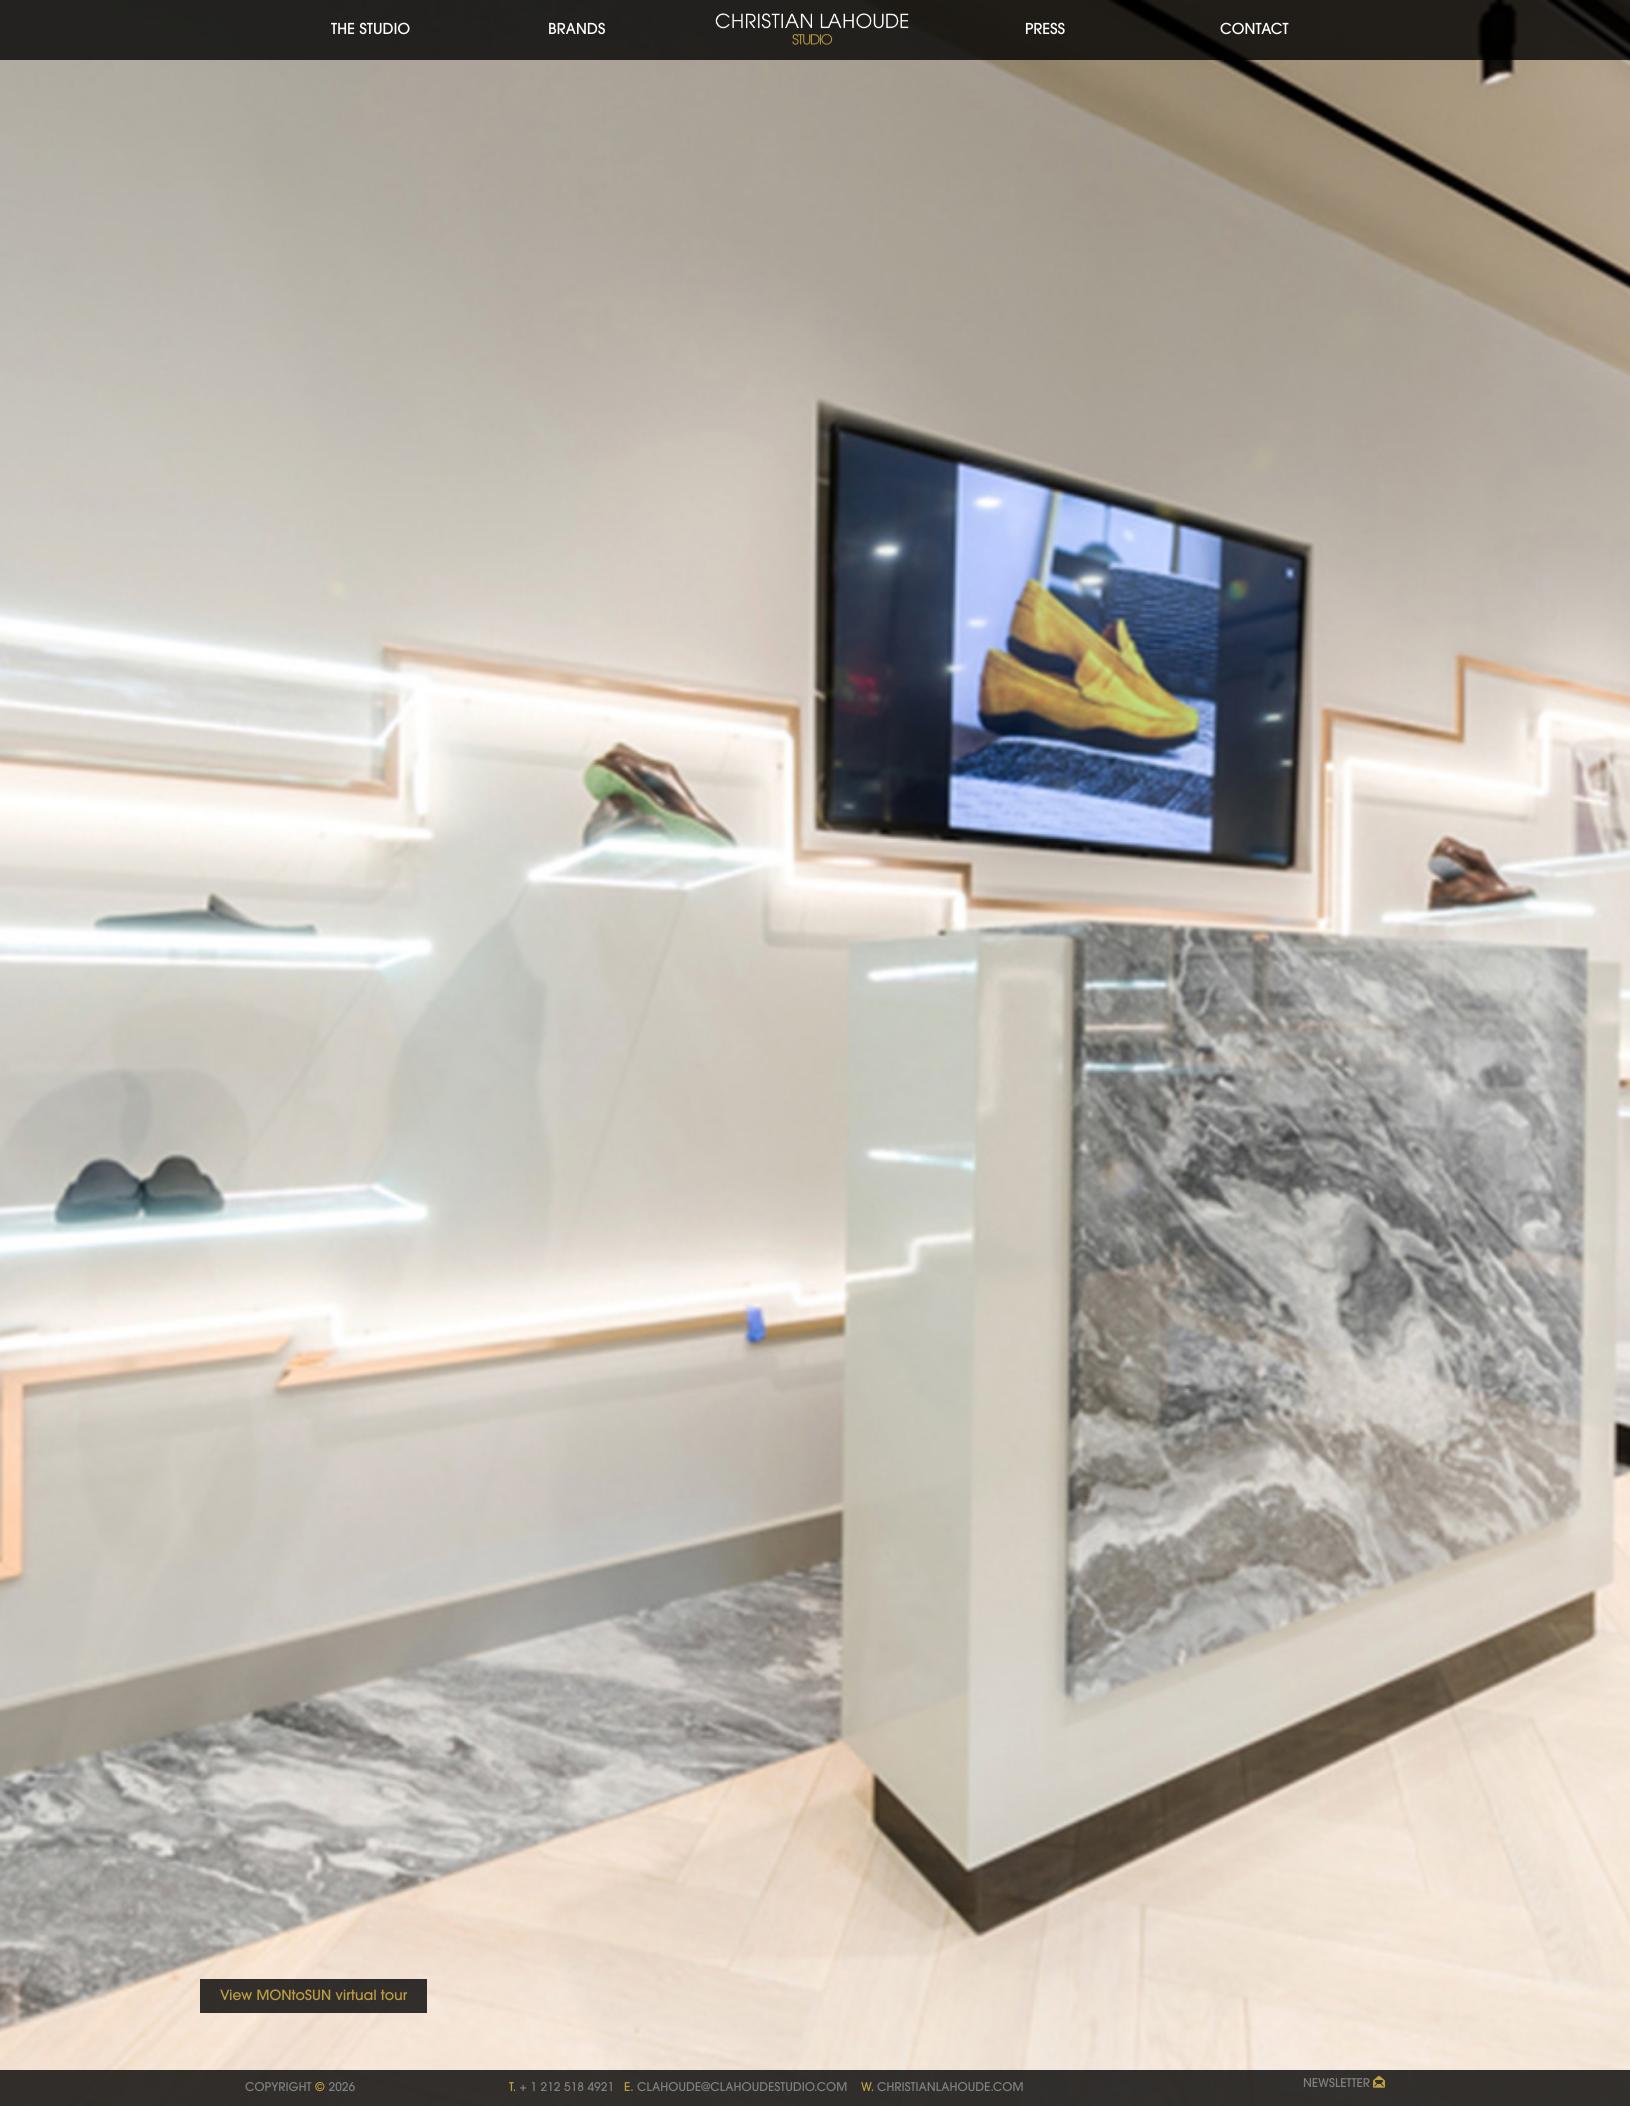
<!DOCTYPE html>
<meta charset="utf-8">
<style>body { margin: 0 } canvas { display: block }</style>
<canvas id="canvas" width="1630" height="2106"></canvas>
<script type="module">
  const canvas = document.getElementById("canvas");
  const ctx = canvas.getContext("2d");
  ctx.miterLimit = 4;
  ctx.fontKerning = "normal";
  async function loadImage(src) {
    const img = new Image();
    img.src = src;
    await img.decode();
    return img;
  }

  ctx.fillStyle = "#ffffff";
  ctx.fillRect(0, 0, 1630, 2106);
  ctx.drawImage(await loadImage("img1.png"), 0, 0, 1630, 2106);
  ctx.fillStyle = "rgba(0, 0, 0, 0.8)";
  ctx.fillRect(200, 1979, 227, 34);
  ctx.drawImage(await loadImage("img2.png"), 220, 1989, 188, 12);
  ctx.fillRect(0, 0, 1630, 60);
  ctx.drawImage(await loadImage("img3.png"), 331, 22, 79, 13);
  ctx.drawImage(await loadImage("img4.png"), 549, 22, 56, 13);
  ctx.drawImage(await loadImage("img5.png"), 715, 13, 194, 32);
  ctx.drawImage(await loadImage("img6.png"), 1025, 22, 40, 13);
  ctx.drawImage(await loadImage("img7.png"), 1220, 22, 69, 13);
  ctx.fillRect(0, 2070, 1630, 36);
  ctx.drawImage(await loadImage("img8.png"), 245, 2082, 67, 10);
  ctx.drawImage(await loadImage("img9.png"), 315, 2082, 10, 10);
  ctx.drawImage(await loadImage("img10.png"), 329, 2082, 26, 10);
  ctx.drawImage(await loadImage("img11.png"), 509, 2082, 7, 9);
  ctx.drawImage(await loadImage("img12.png"), 520, 2082, 92, 10);
  ctx.drawImage(await loadImage("img13.png"), 624, 2082, 9, 9);
  ctx.drawImage(await loadImage("img14.png"), 637, 2082, 210, 10);
  ctx.drawImage(await loadImage("img15.png"), 861, 2082, 13, 9);
  ctx.drawImage(await loadImage("img16.png"), 877, 2082, 146, 10);
  ctx.drawImage(await loadImage("img17.png"), 1303, 2078, 67, 10);
  ctx.drawImage(await loadImage("img18.png"), 1373, 2075, 12, 13);
</script>
